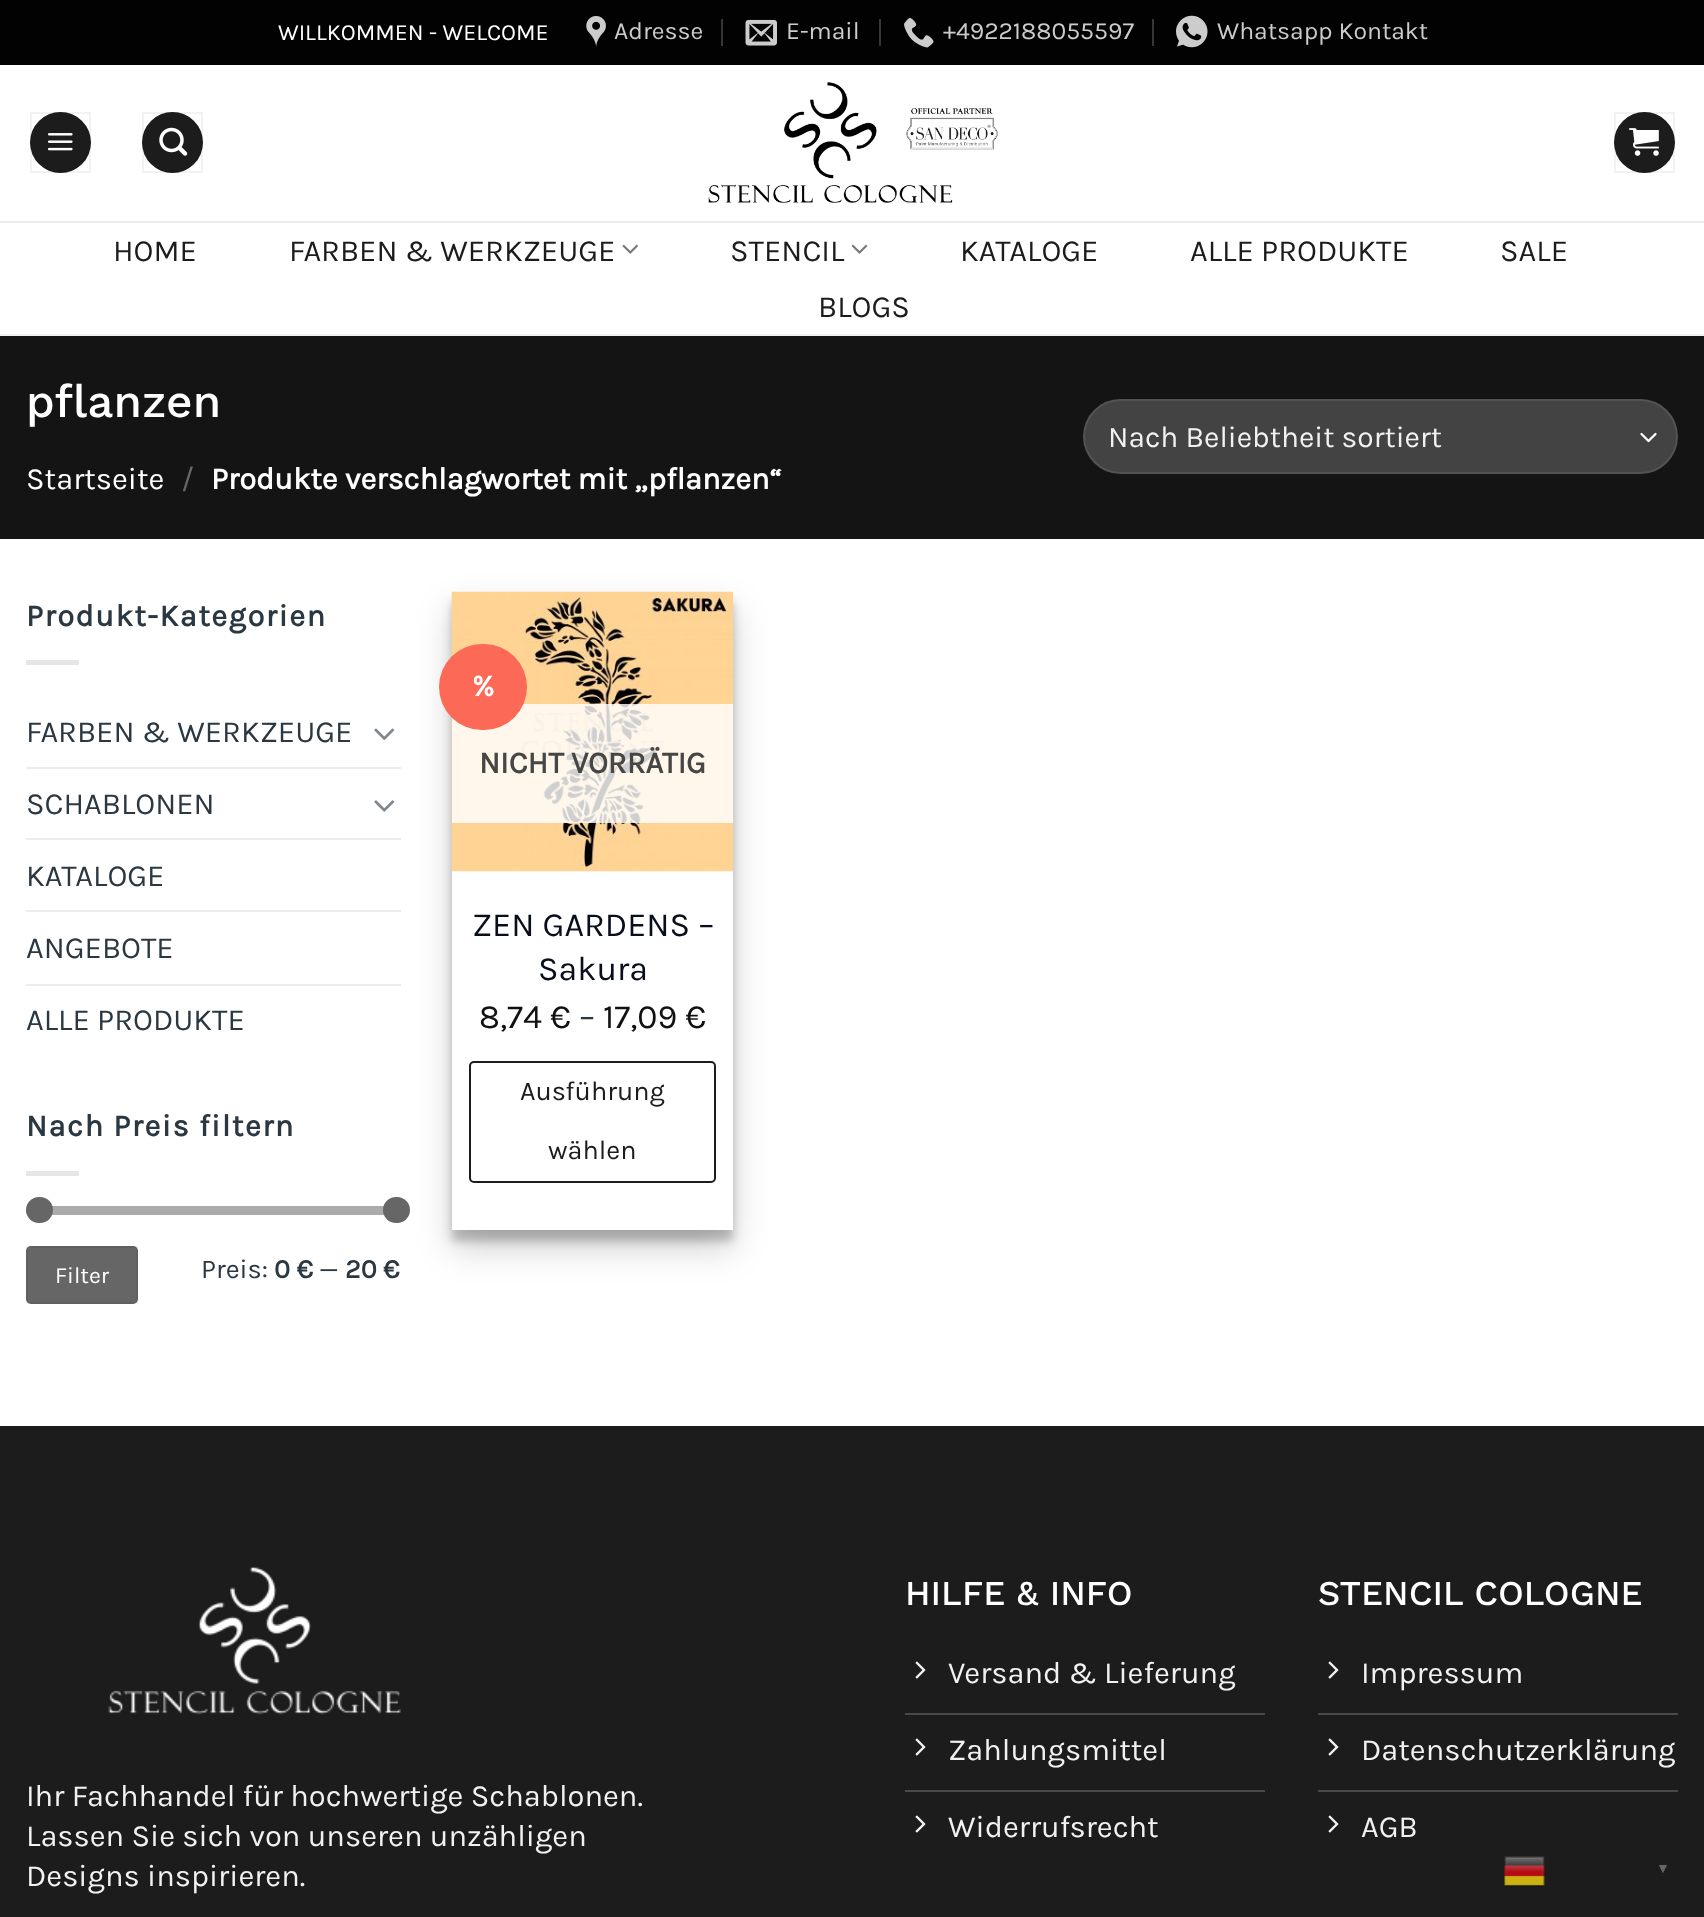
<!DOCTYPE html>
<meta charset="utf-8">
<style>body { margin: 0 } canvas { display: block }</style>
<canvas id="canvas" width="1704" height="1917"></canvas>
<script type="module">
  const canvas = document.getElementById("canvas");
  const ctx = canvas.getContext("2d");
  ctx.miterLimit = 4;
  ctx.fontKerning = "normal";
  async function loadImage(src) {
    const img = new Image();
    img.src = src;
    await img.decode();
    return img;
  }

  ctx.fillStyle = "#ffffff";
  ctx.fillRect(0, 0, 1704, 1917);
  ctx.fillStyle = "#020202";
  ctx.fillRect(0, 0, 1704, 65);
  ctx.font = "23.1px Karla";
  ctx.fillStyle = "#ffffff";
  ctx.fillText("WILLKOMMEN - WELCOME", 278, 40);
  ctx.drawImage(await loadImage("img1.png"), 586, 16, 20, 31);
  ctx.font = "24.75px Karla";
  ctx.fillStyle = "#cccccc";
  ctx.fillText("Adresse", 614, 39);
  ctx.fillStyle = "#353535";
  ctx.fillRect(721, 19, 2, 27);
  ctx.drawImage(await loadImage("img2.png"), 745, 19, 32, 27);
  ctx.fillStyle = "#cccccc";
  ctx.fillText("E-mail", 786, 39);
  ctx.fillStyle = "#353535";
  ctx.fillRect(879, 19, 2, 27);
  ctx.drawImage(await loadImage("img3.png"), 904, 18, 30, 30);
  ctx.fillStyle = "#cccccc";
  ctx.fillText("+4922188055597", 943, 39);
  ctx.fillStyle = "#353535";
  ctx.fillRect(1152, 19, 2, 27);
  ctx.drawImage(await loadImage("img4.png"), 1176, 15, 32, 33);
  ctx.fillStyle = "#cccccc";
  ctx.fillText("Whatsapp Kontakt", 1217, 39);
  ctx.fillStyle = "#e9ebec";
  ctx.fillRect(0, 221, 1704, 2);
  ctx.fillStyle = "#1c1c1c";
  ctx.beginPath();
  ctx.arc(60.5, 142.5, 30.5, 0, Math.PI * 2);
  ctx.fill();
  ctx.strokeStyle = "rgba(0, 0, 0, 0.05)";
  ctx.lineWidth = 2;
  ctx.strokeRect(31, 113, 59, 59);
  ctx.drawImage(await loadImage("img5.png"), 48, 133, 25, 18);
  ctx.beginPath();
  ctx.arc(172.5, 142.5, 30.5, 0, Math.PI * 2);
  ctx.fill();
  ctx.strokeRect(143, 113, 59, 59);
  ctx.drawImage(await loadImage("img6.png"), 159, 127, 29, 29);
  ctx.drawImage(await loadImage("img7.png"), 708, 82, 290, 121);
  ctx.beginPath();
  ctx.arc(1644.5, 142.5, 30.5, 0, Math.PI * 2);
  ctx.fill();
  ctx.strokeRect(1615, 113, 59, 59);
  ctx.drawImage(await loadImage("img8.png"), 1629, 128, 30, 28);
  ctx.fillStyle = "#f2f2f2";
  ctx.fillRect(0, 334, 1704, 2);
  ctx.font = "30.8px Karla";
  ctx.fillStyle = "#1c1c1c";
  ctx.fillText("HOME", 113, 261);
  ctx.fillText("FARBEN & WERKZEUGE", 289, 261);
  ctx.drawImage(await loadImage("img9.png"), 622, 244, 16, 10);
  ctx.fillText("STENCIL", 730, 261);
  ctx.drawImage(await loadImage("img10.png"), 851, 244, 17, 10);
  ctx.fillText("KATALOGE", 960, 261);
  ctx.fillText("ALLE PRODUKTE", 1190, 261);
  ctx.fillText("SALE", 1500, 261);
  ctx.fillText("BLOGS", 818, 317);
  ctx.fillStyle = "#141414";
  ctx.fillRect(0, 336, 1704, 203);
  ctx.font = "500 46px Work Sans";
  ctx.fillStyle = "#ffffff";
  ctx.fillText("pflanzen", 26, 417);
  ctx.font = "30.8px Karla";
  ctx.fillText("Startseite", 26, 489);
  ctx.fillStyle = "#666666";
  ctx.fillText("/", 181, 489);
  ctx.font = "bold 30.8px Karla";
  ctx.fillStyle = "#ffffff";
  ctx.fillText("Produkte verschlagwortet mit „pflanzen“", 211, 489);
  ctx.fillStyle = "#434343";
  ctx.beginPath();
  ctx.roundRect(1083, 399, 595, 75, 37.5);
  ctx.fill();
  ctx.beginPath();
  ctx.moveTo(1641.5, 434);
  ctx.lineTo(1648.5, 441);
  ctx.lineTo(1655.5, 434);
  ctx.strokeStyle = "#ffffff";
  ctx.lineWidth = 2.3;
  ctx.lineCap = "round";
  ctx.lineJoin = "round";
  ctx.stroke();
  ctx.beginPath();
  ctx.roundRect(1084, 400, 593, 73, 36.5);
  ctx.strokeStyle = "rgba(255, 255, 255, 0.09)";
  ctx.lineWidth = 2;
  ctx.lineJoin = "miter";
  ctx.stroke();
  ctx.font = "29.9px Karla";
  ctx.fillStyle = "#f1f1f1";
  ctx.fillText("Nach Beliebtheit sortiert", 1108, 447);
  ctx.letterSpacing = "1.5px";
  ctx.font = "bold 30.8px Karla";
  ctx.fillStyle = "#2b3842";
  ctx.fillText("Produkt-Kategorien", 26, 626);
  ctx.fillStyle = "#e6e6e6";
  ctx.fillRect(26, 660, 53, 5);
  ctx.letterSpacing = "0px";
  ctx.font = "30.8px Karla";
  ctx.fillStyle = "#2b3842";
  ctx.fillText("FARBEN & WERKZEUGE", 26, 742);
  ctx.drawImage(await loadImage("img11.png"), 374, 728, 21, 12);
  ctx.fillStyle = "#ececec";
  ctx.fillRect(26, 767, 375, 2);
  ctx.fillStyle = "#2b3842";
  ctx.fillText("SCHABLONEN", 26, 814);
  ctx.drawImage(await loadImage("img12.png"), 374, 800, 21, 12);
  ctx.fillStyle = "#ececec";
  ctx.fillRect(26, 838, 375, 2);
  ctx.fillStyle = "#2b3842";
  ctx.fillText("KATALOGE", 26, 886);
  ctx.fillStyle = "#ececec";
  ctx.fillRect(26, 910, 375, 2);
  ctx.fillStyle = "#2b3842";
  ctx.fillText("ANGEBOTE", 26, 958);
  ctx.fillStyle = "#ececec";
  ctx.fillRect(26, 984, 375, 2);
  ctx.fillStyle = "#2b3842";
  ctx.fillText("ALLE PRODUKTE", 26, 1030);
  ctx.letterSpacing = "1.5px";
  ctx.font = "bold 30.8px Karla";
  ctx.fillText("Nach Preis filtern", 26, 1136);
  ctx.fillStyle = "#e6e6e6";
  ctx.fillRect(26, 1171, 53, 5);
  ctx.fillStyle = "#f1f1f1";
  ctx.beginPath();
  ctx.roundRect(26, 1206, 375, 9, 4.5);
  ctx.fill();
  ctx.save();
  ctx.beginPath();
  ctx.moveTo(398, 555);
  ctx.lineTo(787, 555);
  ctx.lineTo(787, 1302);
  ctx.lineTo(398, 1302);
  ctx.closePath();
  ctx.moveTo(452, 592);
  ctx.lineTo(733, 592);
  ctx.lineTo(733, 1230);
  ctx.lineTo(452, 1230);
  ctx.closePath();
  ctx.clip("evenodd");
  ctx.fillStyle = "rgba(0, 0, 0, 0.19)";
  ctx.filter = "blur(17.5px)";
  ctx.beginPath();
  ctx.rect(452, 609, 281, 639);
  ctx.fill();
  ctx.filter = "none";
  ctx.restore();
  ctx.fillStyle = "rgba(102, 102, 102, 0.5)";
  ctx.beginPath();
  ctx.roundRect(26, 1206, 375, 9, 4.5);
  ctx.fill();
  ctx.fillStyle = "#666666";
  ctx.beginPath();
  ctx.roundRect(26, 1197, 27, 26, 13);
  ctx.fill();
  ctx.beginPath();
  ctx.roundRect(383, 1197, 27, 26, 13);
  ctx.fill();
  ctx.beginPath();
  ctx.roundRect(26, 1246, 112, 58, 5);
  ctx.fill();
  ctx.strokeStyle = "rgba(0, 0, 0, 0.05)";
  ctx.strokeRect(27, 1247, 110, 56);
  ctx.letterSpacing = "0px";
  ctx.font = "23px Karla";
  ctx.fillStyle = "#ffffff";
  ctx.fillText("Filter", 55, 1283);
  ctx.font = "27px Karla";
  ctx.fillStyle = "#2b3842";
  ctx.fillText("Preis:", 201, 1278);
  ctx.font = "bold 27px Karla";
  ctx.fillText("0 €", 274, 1278);
  ctx.font = "27px Karla";
  ctx.fillText("—", 319, 1278);
  ctx.font = "bold 27px Karla";
  ctx.fillText("20 €", 345, 1278);
  ctx.save();
  ctx.beginPath();
  ctx.moveTo(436, 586);
  ctx.lineTo(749, 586);
  ctx.lineTo(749, 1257);
  ctx.lineTo(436, 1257);
  ctx.closePath();
  ctx.moveTo(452, 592);
  ctx.lineTo(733, 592);
  ctx.lineTo(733, 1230);
  ctx.lineTo(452, 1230);
  ctx.closePath();
  ctx.clip("evenodd");
  ctx.fillStyle = "rgba(0, 0, 0, 0.22)";
  ctx.filter = "blur(5px)";
  ctx.beginPath();
  ctx.rect(452, 602, 281, 639);
  ctx.fill();
  ctx.filter = "none";
  ctx.restore();
  ctx.drawImage(await loadImage("img13.png"), 451, 591, 283, 281);
  ctx.fillStyle = "rgba(255, 255, 255, 0.81)";
  ctx.fillRect(452, 704, 281, 119);
  ctx.fillStyle = "#fc6957";
  ctx.beginPath();
  ctx.roundRect(439, 644, 88, 86, 43);
  ctx.fill();
  ctx.font = "bold 30.8px Karla";
  ctx.fillStyle = "#ffffff";
  ctx.fillText("%", 472, 696);
  ctx.fillStyle = "#464645";
  ctx.fillText("NICHT VORRÄTIG", 479, 773);
  ctx.font = "34px Karla";
  ctx.fillStyle = "#090e1d";
  ctx.fillText("ZEN GARDENS –", 472, 936);
  ctx.fillText("Sakura", 538, 980);
  ctx.fillStyle = "#111111";
  ctx.fillText("8,74 €", 479, 1028);
  ctx.fillStyle = "#2b3842";
  ctx.fillText("–", 579, 1028);
  ctx.fillStyle = "#111111";
  ctx.fillText("17,09 €", 603, 1028);
  ctx.beginPath();
  ctx.roundRect(470, 1062, 245, 120, 4);
  ctx.strokeStyle = "#1c1c1c";
  ctx.stroke();
  ctx.font = "27px Karla";
  ctx.fillStyle = "#1c1c1c";
  ctx.fillText("Ausführung", 520, 1100);
  ctx.fillText("wählen", 548, 1159);
  ctx.fillRect(0, 1426, 1704, 491);
  ctx.drawImage(await loadImage("img14.png"), 108, 1567, 293, 148);
  ctx.font = "30.8px Karla";
  ctx.fillStyle = "#f1f1f1";
  ctx.fillText("Ihr Fachhandel für hochwertige Schablonen.", 26, 1806);
  ctx.fillText("Lassen Sie sich von unseren unzähligen", 26, 1846);
  ctx.fillText("Designs inspirieren.", 26, 1886);
  ctx.font = "500 34.75px Work Sans";
  ctx.fillStyle = "#ffffff";
  ctx.fillText("HILFE & INFO", 905, 1605);
  ctx.fillStyle = "#494949";
  ctx.fillRect(905, 1713, 360, 2);
  ctx.drawImage(await loadImage("img15.png"), 915, 1661, 11, 18);
  ctx.font = "30.8px Karla";
  ctx.fillStyle = "#f1f1f1";
  ctx.fillText("Versand & Lieferung", 948, 1683);
  ctx.fillStyle = "#494949";
  ctx.fillRect(905, 1790, 360, 2);
  ctx.drawImage(await loadImage("img15.png"), 915, 1738, 11, 18);
  ctx.fillStyle = "#f1f1f1";
  ctx.fillText("Zahlungsmittel", 948, 1760);
  ctx.drawImage(await loadImage("img15.png"), 915, 1815, 11, 18);
  ctx.fillText("Widerrufsrecht", 948, 1837);
  ctx.font = "500 34.75px Work Sans";
  ctx.fillStyle = "#ffffff";
  ctx.fillText("STENCIL COLOGNE", 1318, 1605);
  ctx.fillStyle = "#494949";
  ctx.fillRect(1318, 1713, 360, 2);
  ctx.drawImage(await loadImage("img15.png"), 1328, 1661, 11, 18);
  ctx.font = "30.8px Karla";
  ctx.fillStyle = "#f1f1f1";
  ctx.fillText("Impressum", 1361, 1683);
  ctx.fillStyle = "#494949";
  ctx.fillRect(1318, 1790, 360, 2);
  ctx.drawImage(await loadImage("img15.png"), 1328, 1738, 11, 18);
  ctx.fillStyle = "#f1f1f1";
  ctx.fillText("Datenschutzerklärung", 1361, 1760);
  ctx.drawImage(await loadImage("img15.png"), 1328, 1815, 11, 18);
  ctx.fillText("AGB", 1361, 1837);
  ctx.drawImage(await loadImage("img16.png"), 1504, 1856, 41, 31);
  ctx.font = "bold 14px Liberation Sans";
  ctx.fillStyle = "#666666";
  ctx.fillText("▼", 1656, 1873);
</script>
